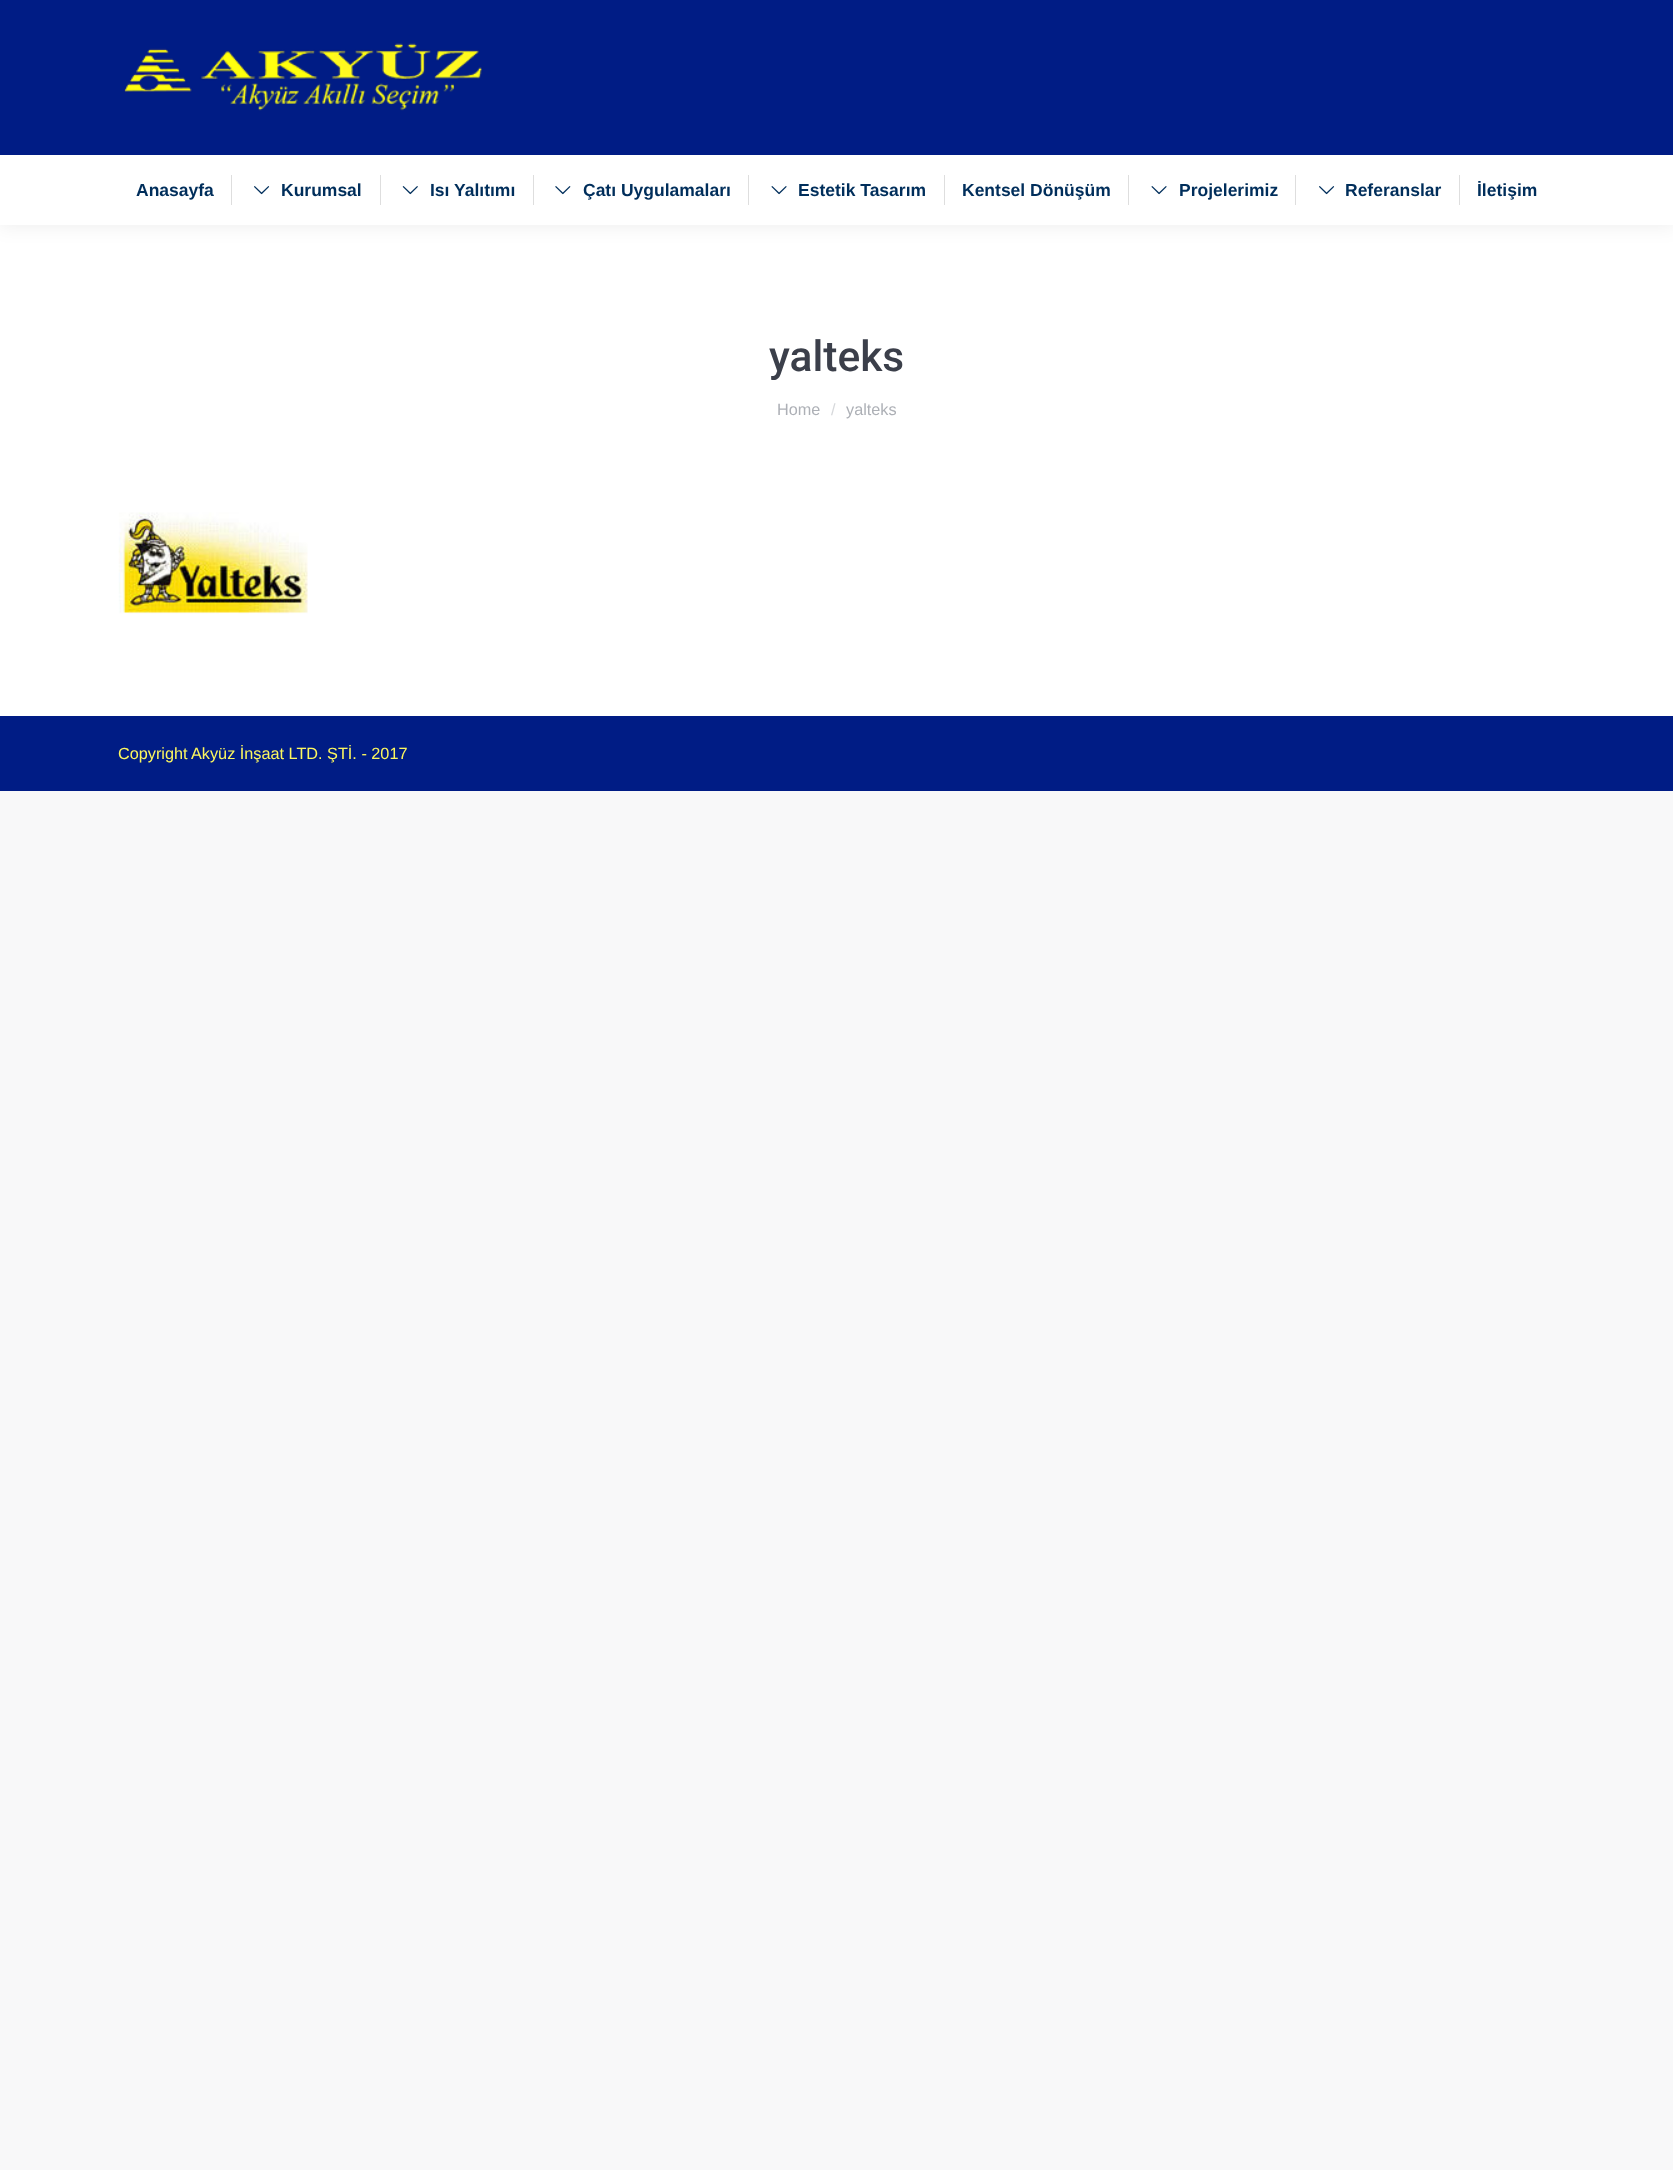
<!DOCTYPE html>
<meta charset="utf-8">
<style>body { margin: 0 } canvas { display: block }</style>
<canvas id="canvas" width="1673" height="2170"></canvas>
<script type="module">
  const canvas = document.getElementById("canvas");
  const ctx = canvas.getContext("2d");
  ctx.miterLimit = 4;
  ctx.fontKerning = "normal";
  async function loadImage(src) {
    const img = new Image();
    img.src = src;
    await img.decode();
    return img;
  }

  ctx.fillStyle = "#f8f8f9";
  ctx.fillRect(0, 0, 1673, 2170);
  ctx.fillStyle = "#ffffff";
  ctx.fillRect(0, 225, 1673, 491);
  ctx.fillStyle = "rgba(0, 0, 0, 0.07)";
  ctx.filter = "blur(9.5px)";
  ctx.beginPath();
  ctx.rect(-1, -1, 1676, 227);
  ctx.fill();
  ctx.filter = "none";
  ctx.fillStyle = "#001c85";
  ctx.fillRect(0, 0, 1673, 155);
  ctx.drawImage(await loadImage("img1.png"), 124, 43, 359, 68);
  ctx.fillStyle = "#ffffff";
  ctx.fillRect(0, 155, 1673, 70);
  ctx.font = "bold 17.5px Liberation Sans";
  ctx.fillStyle = "#002e5b";
  ctx.fillText("Anasayfa", 136, 196);
  ctx.fillStyle = "#dedede";
  ctx.fillRect(231, 175, 1, 30);
  ctx.drawImage(await loadImage("img2.png"), 254, 186, 16, 9);
  ctx.fillStyle = "#002e5b";
  ctx.fillText("Kurumsal", 281, 196);
  ctx.fillStyle = "#dedede";
  ctx.fillRect(380, 175, 1, 30);
  ctx.drawImage(await loadImage("img3.png"), 402, 186, 16, 9);
  ctx.fillStyle = "#002e5b";
  ctx.fillText("Isı Yalıtımı", 430, 196);
  ctx.fillStyle = "#dedede";
  ctx.fillRect(533, 175, 1, 30);
  ctx.drawImage(await loadImage("img4.png"), 555, 186, 16, 9);
  ctx.fillStyle = "#002e5b";
  ctx.fillText("Çatı Uygulamaları", 583, 196);
  ctx.fillStyle = "#dedede";
  ctx.fillRect(748, 175, 1, 30);
  ctx.drawImage(await loadImage("img5.png"), 771, 186, 16, 9);
  ctx.fillStyle = "#002e5b";
  ctx.fillText("Estetik Tasarım", 798, 196);
  ctx.fillStyle = "#dedede";
  ctx.fillRect(944, 175, 1, 30);
  ctx.fillStyle = "#002e5b";
  ctx.fillText("Kentsel Dönüşüm", 962, 196);
  ctx.fillStyle = "#dedede";
  ctx.fillRect(1128, 175, 1, 30);
  ctx.drawImage(await loadImage("img5.png"), 1151, 186, 16, 9);
  ctx.fillStyle = "#002e5b";
  ctx.fillText("Projelerimiz", 1179, 196);
  ctx.fillStyle = "#dedede";
  ctx.fillRect(1295, 175, 1, 30);
  ctx.drawImage(await loadImage("img2.png"), 1319, 186, 16, 9);
  ctx.fillStyle = "#002e5b";
  ctx.fillText("Referanslar", 1345, 196);
  ctx.fillStyle = "#dedede";
  ctx.fillRect(1459, 175, 1, 30);
  ctx.fillStyle = "#002e5b";
  ctx.fillText("İletişim", 1477, 196);
  ctx.font = "500 42.5px Roboto";
  ctx.fillStyle = "#3b3f4a";
  ctx.fillText("yalteks", 769, 371);
  ctx.font = "16.25px Liberation Sans";
  ctx.fillStyle = "#adb0b6";
  ctx.fillText("Home", 777, 415);
  ctx.fillStyle = "#d6d8db";
  ctx.fillText("/", 831, 415);
  ctx.fillStyle = "#adb0b6";
  ctx.fillText("yalteks", 846, 415);
  ctx.drawImage(await loadImage("img6.png"), 118, 512, 190, 102);
  ctx.fillStyle = "#001c85";
  ctx.fillRect(0, 716, 1673, 75);
  ctx.fillStyle = "#fcf75f";
  ctx.fillText("Copyright", 118, 759);
  ctx.fillText("Akyüz İnşaat LTD. ŞTİ. - 2017", 191, 759);
</script>
